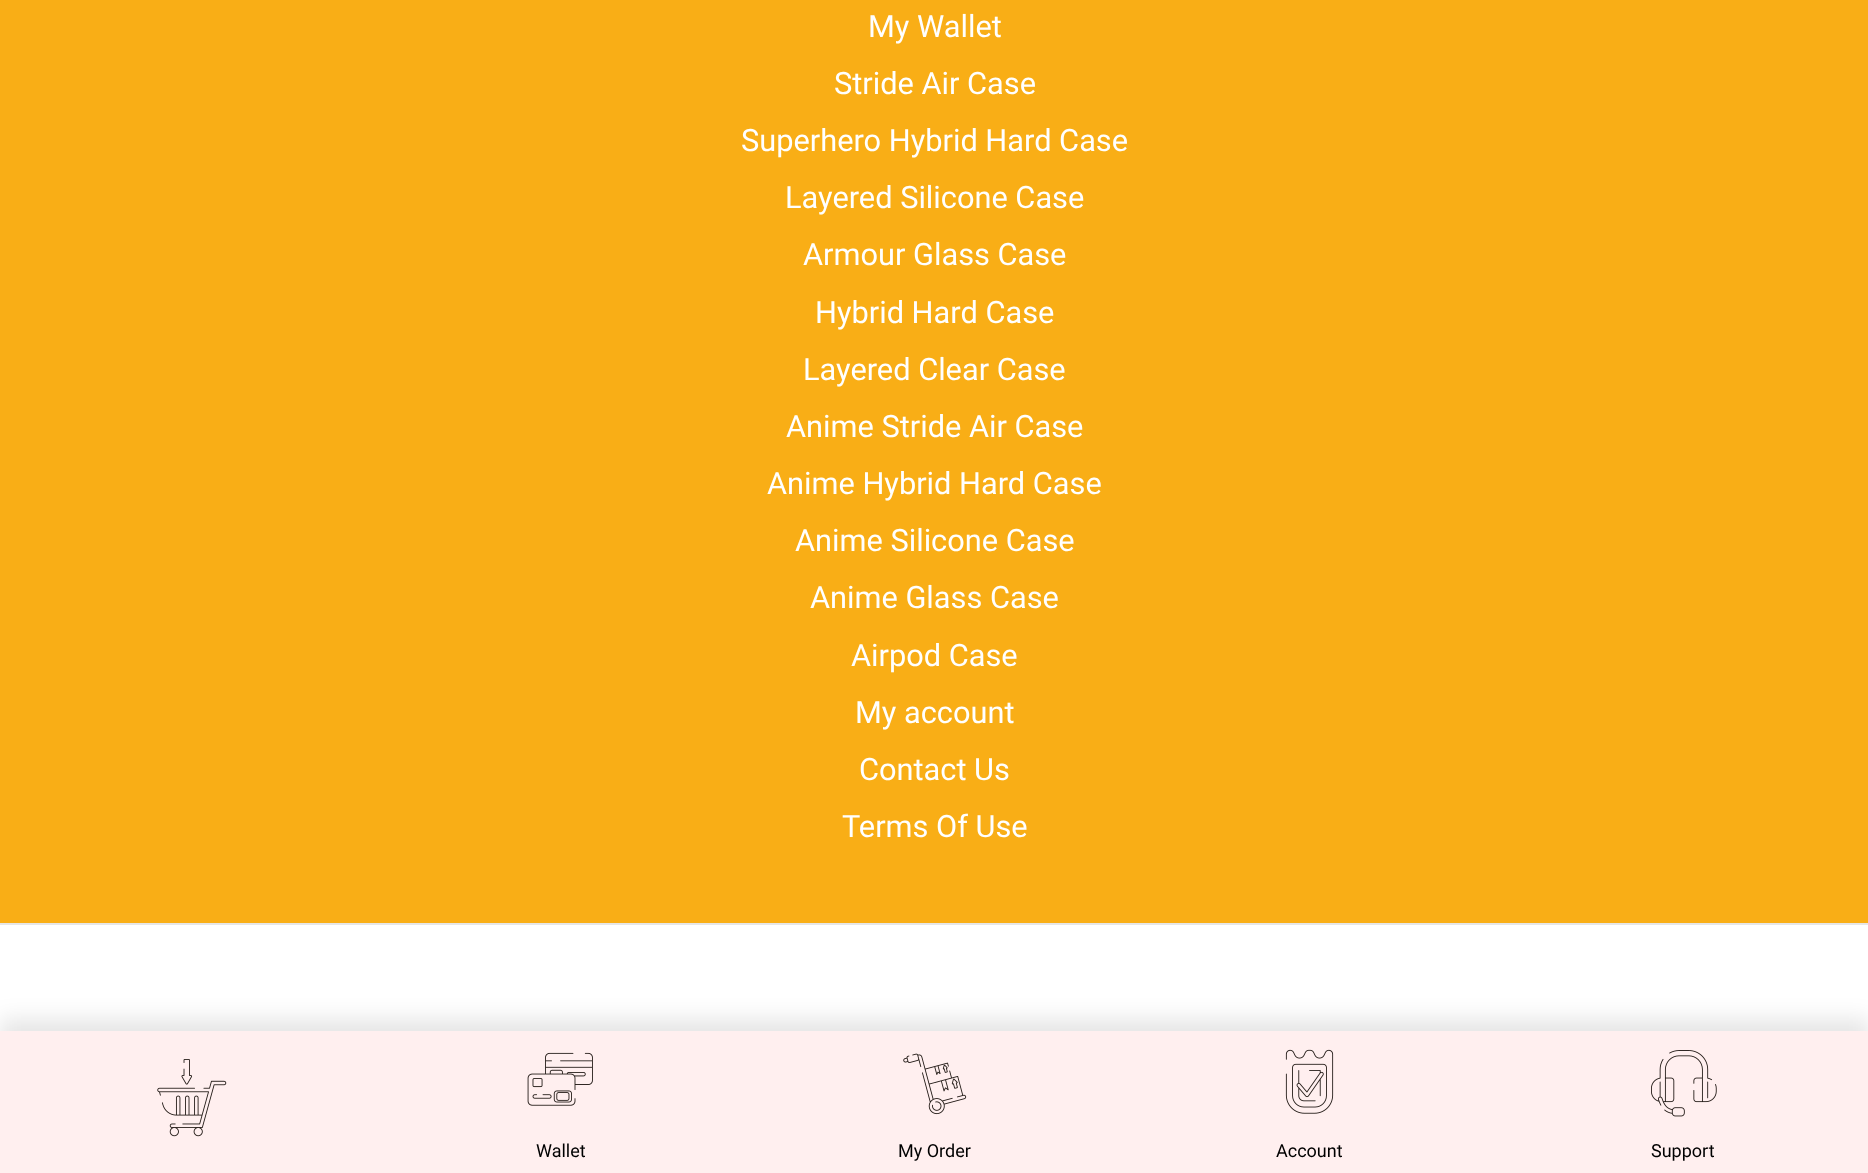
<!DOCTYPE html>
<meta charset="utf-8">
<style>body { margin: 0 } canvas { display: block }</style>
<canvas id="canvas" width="1868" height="1173"></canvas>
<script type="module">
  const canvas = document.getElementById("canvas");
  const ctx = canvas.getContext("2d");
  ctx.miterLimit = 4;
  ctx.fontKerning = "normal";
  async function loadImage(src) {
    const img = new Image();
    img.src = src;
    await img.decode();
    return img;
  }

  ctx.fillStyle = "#ffffff";
  ctx.fillRect(0, 0, 1868, 1173);
  ctx.fillStyle = "#f9ae16";
  ctx.fillRect(0, 0, 1868, 923);
  ctx.font = "30.75px Roboto";
  ctx.fillStyle = "#ffffff";
  ctx.fillText("My Wallet", 868, 37);
  ctx.fillText("Stride Air Case", 834, 94);
  ctx.fillText("Superhero Hybrid Hard Case", 741, 151);
  ctx.fillText("Layered Silicone Case", 785, 208);
  ctx.fillText("Armour Glass Case", 803, 265);
  ctx.fillText("Hybrid Hard Case", 815, 323);
  ctx.fillText("Layered Clear Case", 803, 380);
  ctx.fillText("Anime Stride Air Case", 786, 437);
  ctx.fillText("Anime Hybrid Hard Case", 767, 494);
  ctx.fillText("Anime Silicone Case", 795, 551);
  ctx.fillText("Anime Glass Case", 810, 608);
  ctx.fillText("Airpod Case", 851, 666);
  ctx.fillText("My account", 855, 723);
  ctx.fillText("Contact Us", 859, 780);
  ctx.fillText("Terms Of Use", 842, 837);
  ctx.fillStyle = "#e6e6e6";
  ctx.fillRect(0, 923, 1868, 2);
  ctx.fillStyle = "rgba(0, 0, 0, 0.1)";
  ctx.filter = "blur(11px)";
  ctx.beginPath();
  ctx.rect(0, 1019, 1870, 144);
  ctx.fill();
  ctx.filter = "none";
  ctx.fillStyle = "#ffefef";
  ctx.fillRect(0, 1031, 1868, 142);
  ctx.drawImage(await loadImage("img1.png"), 157, 1059, 70, 78);
  ctx.drawImage(await loadImage("img2.png"), 527, 1052, 66, 54);
  ctx.font = "18px Roboto";
  ctx.fillStyle = "#000000";
  ctx.fillText("Wallet", 536, 1157);
  ctx.drawImage(await loadImage("img3.png"), 903, 1053, 64, 62);
  ctx.fillText("My Order", 898, 1157);
  ctx.drawImage(await loadImage("img4.png"), 1285, 1049, 49, 65);
  ctx.fillText("Account", 1276, 1157);
  ctx.drawImage(await loadImage("img5.png"), 1651, 1050, 66, 67);
  ctx.fillText("Support", 1651, 1157);
</script>
